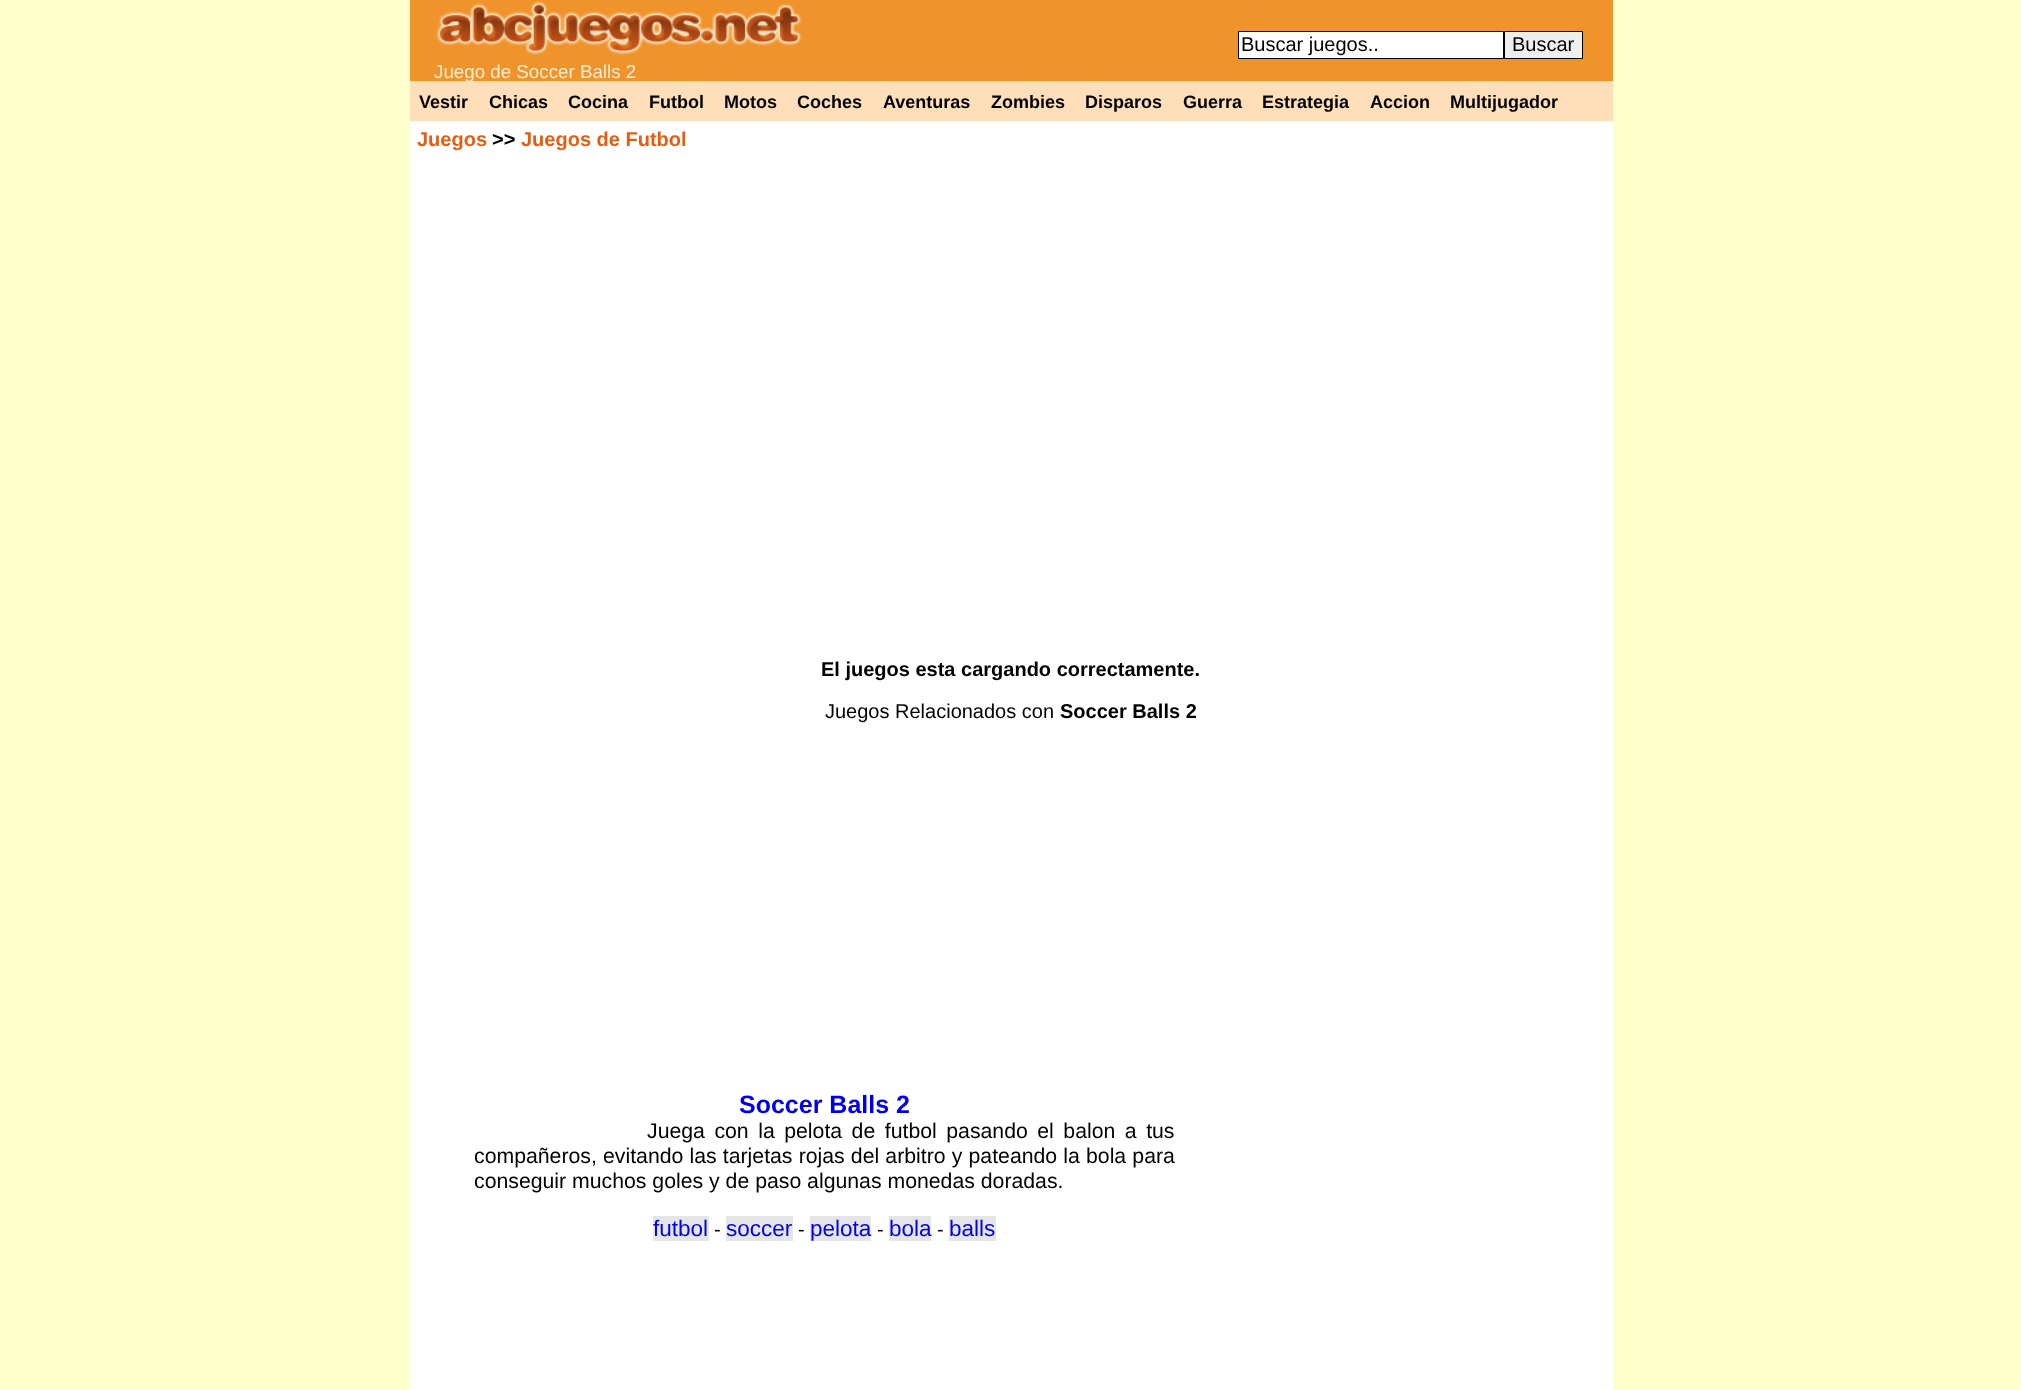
<!DOCTYPE html>
<meta charset="utf-8">
<style>body { margin: 0 } canvas { display: block }</style>
<canvas id="canvas" width="2021" height="1390"></canvas>
<script type="module">
  const canvas = document.getElementById("canvas");
  const ctx = canvas.getContext("2d");
  ctx.miterLimit = 4;
  ctx.fontKerning = "normal";
  async function loadImage(src) {
    const img = new Image();
    img.src = src;
    await img.decode();
    return img;
  }

  ctx.fillStyle = "#ffffcc";
  ctx.fillRect(0, 0, 2021, 1390);
  ctx.fillStyle = "#f0932b";
  ctx.fillRect(410, 0, 1203, 81);
  ctx.fillStyle = "#ffffff";
  ctx.beginPath();
  ctx.rect(1238.5, 31.5, 265, 27);
  ctx.fill();
  ctx.strokeStyle = "#000000";
  ctx.stroke();
  ctx.font = "20px Liberation Sans";
  ctx.fillStyle = "#000000";
  ctx.fillText("Buscar juegos..", 1241, 51);
  ctx.fillStyle = "#efefef";
  ctx.beginPath();
  ctx.rect(1504.5, 31.5, 78, 27);
  ctx.fill();
  ctx.stroke();
  ctx.fillStyle = "#000000";
  ctx.fillText("Buscar", 1512, 51);
  ctx.drawImage(await loadImage("img1.png"), 436, 1, 366, 54);
  ctx.font = "18.75px Liberation Sans";
  ctx.fillStyle = "#f8ecd2";
  ctx.fillText("Juego de Soccer Balls 2", 434, 78);
  ctx.fillStyle = "#ffdeba";
  ctx.fillRect(410, 81, 1203, 40);
  ctx.font = "bold 18px Liberation Sans";
  ctx.fillStyle = "#000000";
  ctx.fillText("Vestir", 419, 108);
  ctx.fillText("Chicas", 489, 108);
  ctx.fillText("Cocina", 568, 108);
  ctx.fillText("Futbol", 649, 108);
  ctx.fillText("Motos", 724, 108);
  ctx.fillText("Coches", 797, 108);
  ctx.fillText("Aventuras", 883, 108);
  ctx.fillText("Zombies", 991, 108);
  ctx.fillText("Disparos", 1085, 108);
  ctx.fillText("Guerra", 1183, 108);
  ctx.fillText("Estrategia", 1262, 108);
  ctx.fillText("Accion", 1370, 108);
  ctx.fillText("Multijugador", 1450, 108);
  ctx.fillStyle = "#ffffff";
  ctx.fillRect(410, 121, 1203, 1269);
  ctx.font = "bold 20px Liberation Sans";
  ctx.fillStyle = "#e55d13";
  ctx.fillText("Juegos", 417, 146);
  ctx.fillStyle = "#000000";
  ctx.fillText(">>", 492, 146);
  ctx.fillStyle = "#e55d13";
  ctx.fillText("Juegos de Futbol", 521, 146);
  ctx.fillStyle = "#000000";
  ctx.fillText("El juegos esta cargando correctamente.", 821, 676);
  ctx.font = "20px Liberation Sans";
  ctx.fillText("Juegos Relacionados con", 825, 718);
  ctx.font = "bold 20px Liberation Sans";
  ctx.fillText("Soccer Balls 2", 1060, 718);
  ctx.font = "bold 25px Liberation Sans";
  ctx.fillStyle = "#0000ee";
  ctx.fillText("Soccer Balls 2", 739, 1113);
  ctx.wordSpacing = "3.6px";
  ctx.font = "21.25px Liberation Sans";
  ctx.fillStyle = "#000000";
  ctx.fillText("Juega con la pelota de futbol pasando el balon a tus", 647, 1138);
  ctx.wordSpacing = "0.25px";
  ctx.fillText("compañeros, evitando las tarjetas rojas del arbitro y pateando la bola para", 474, 1163);
  ctx.wordSpacing = "0px";
  ctx.fillText("conseguir muchos goles y de paso algunas monedas doradas.", 474, 1188);
  ctx.fillStyle = "#e5e5e5";
  ctx.fillRect(653, 1216, 56, 25);
  ctx.font = "22.5px Liberation Sans";
  ctx.fillStyle = "#0000ee";
  ctx.fillText("futbol", 653, 1236);
  ctx.font = "20px Liberation Sans";
  ctx.fillStyle = "#000000";
  ctx.fillText("-", 714, 1236);
  ctx.fillStyle = "#e5e5e5";
  ctx.fillRect(726, 1216, 67, 25);
  ctx.font = "22.5px Liberation Sans";
  ctx.fillStyle = "#0000ee";
  ctx.fillText("soccer", 726, 1236);
  ctx.font = "20px Liberation Sans";
  ctx.fillStyle = "#000000";
  ctx.fillText("-", 798, 1236);
  ctx.fillStyle = "#e5e5e5";
  ctx.fillRect(810, 1216, 61, 25);
  ctx.font = "22.5px Liberation Sans";
  ctx.fillStyle = "#0000ee";
  ctx.fillText("pelota", 810, 1236);
  ctx.font = "20px Liberation Sans";
  ctx.fillStyle = "#000000";
  ctx.fillText("-", 877, 1236);
  ctx.fillStyle = "#e5e5e5";
  ctx.fillRect(889, 1216, 42, 25);
  ctx.font = "22.5px Liberation Sans";
  ctx.fillStyle = "#0000ee";
  ctx.fillText("bola", 889, 1236);
  ctx.font = "20px Liberation Sans";
  ctx.fillStyle = "#000000";
  ctx.fillText("-", 937, 1236);
  ctx.fillStyle = "#e5e5e5";
  ctx.fillRect(949, 1216, 47, 25);
  ctx.font = "22.5px Liberation Sans";
  ctx.fillStyle = "#0000ee";
  ctx.fillText("balls", 949, 1236);
</script>
